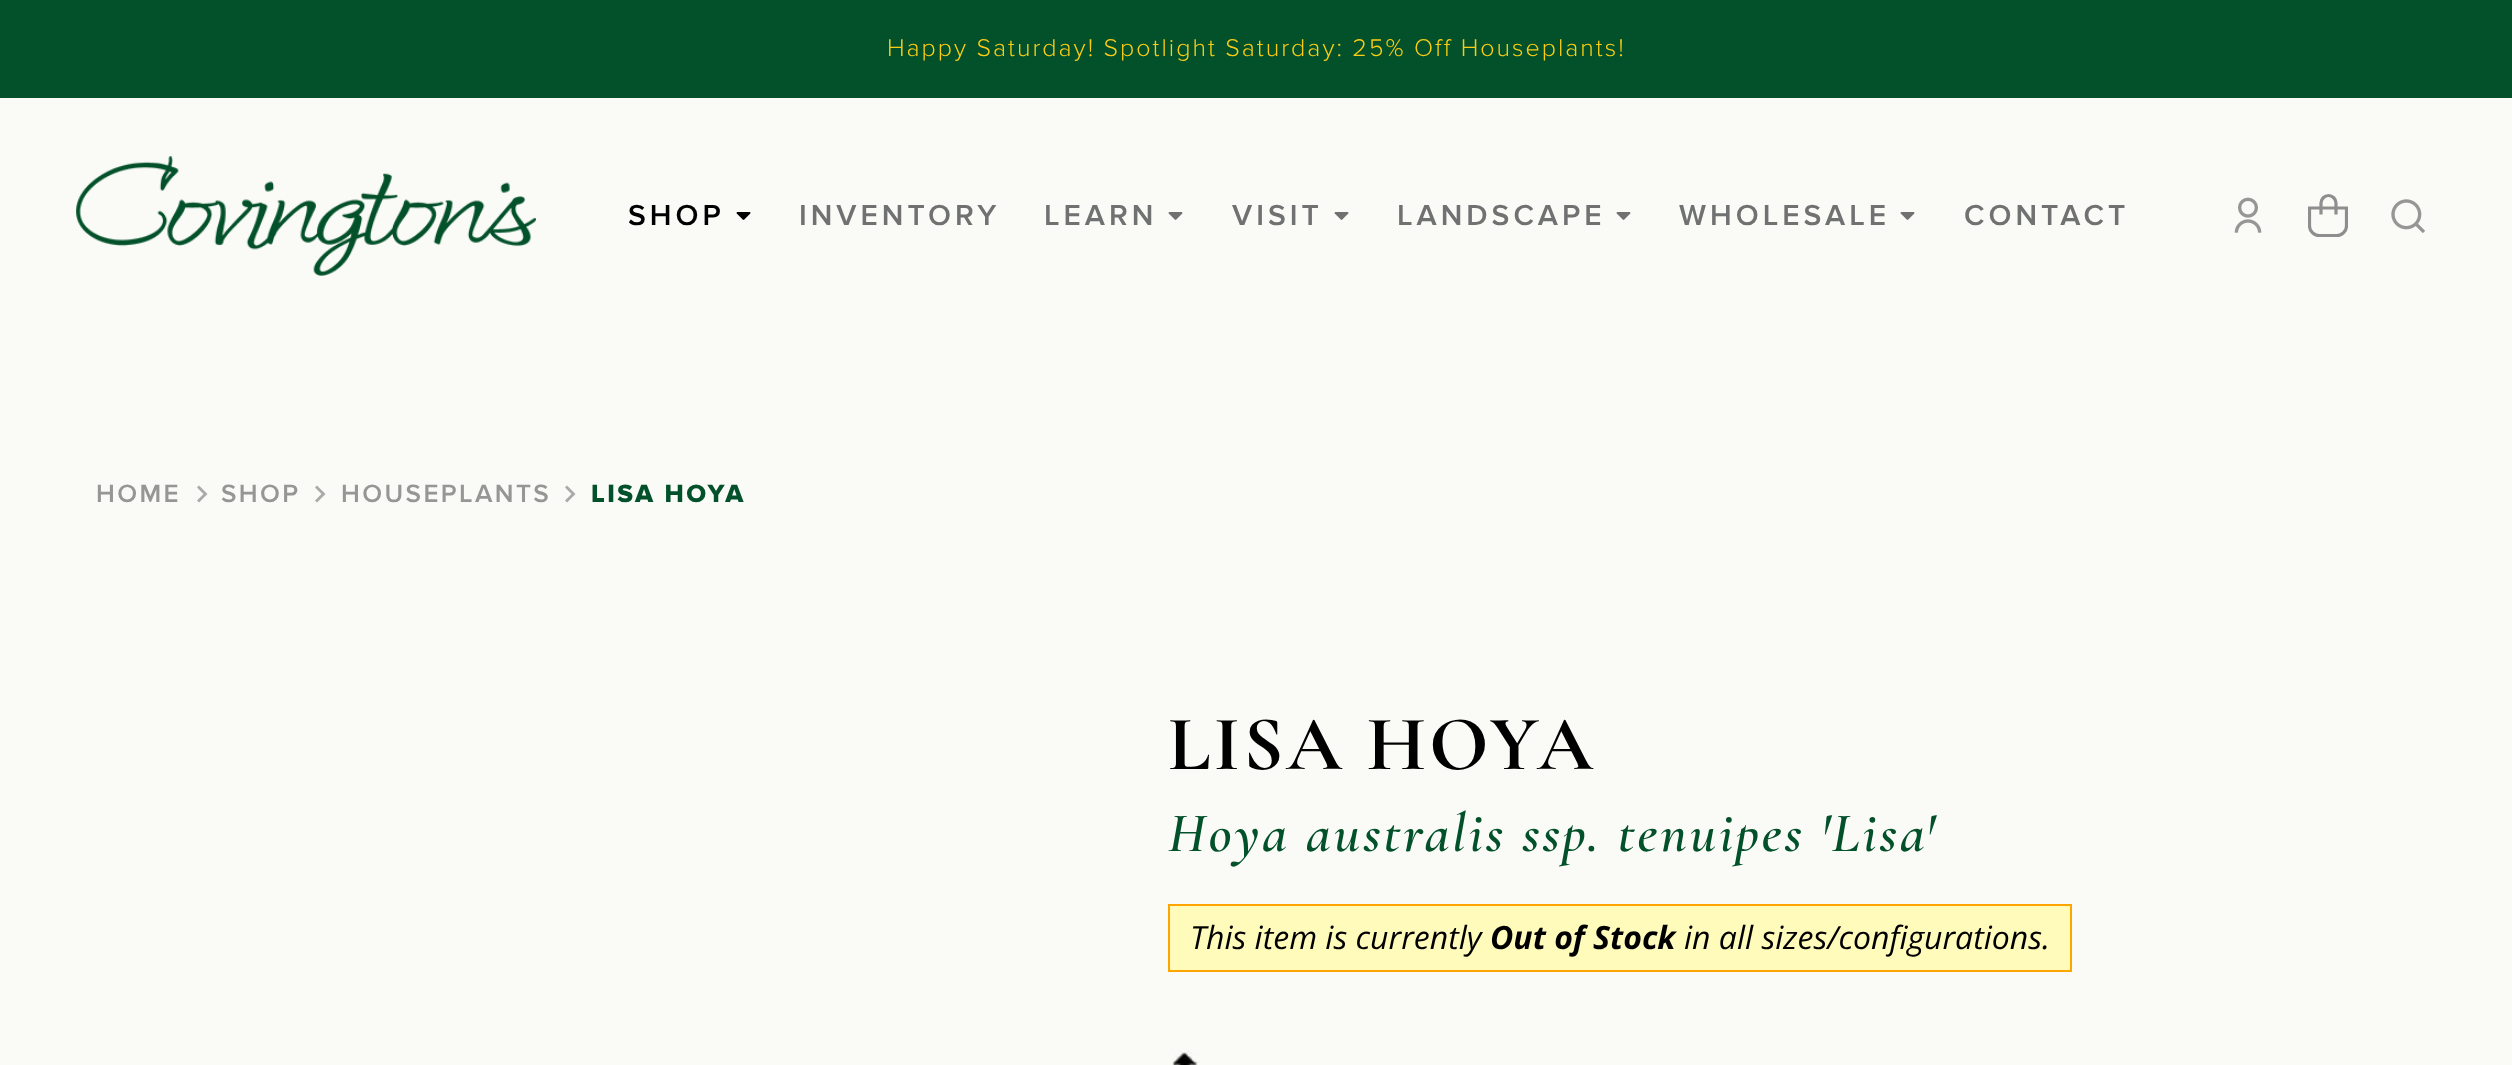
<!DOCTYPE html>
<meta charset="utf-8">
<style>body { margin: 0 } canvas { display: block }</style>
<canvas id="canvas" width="2512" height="1065"></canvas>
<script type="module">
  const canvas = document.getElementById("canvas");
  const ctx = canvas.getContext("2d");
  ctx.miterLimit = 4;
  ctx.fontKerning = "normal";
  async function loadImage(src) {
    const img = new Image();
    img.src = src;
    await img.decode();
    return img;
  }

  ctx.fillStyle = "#fafaf7";
  ctx.fillRect(0, 0, 2512, 1065);
  ctx.fillStyle = "#03512a";
  ctx.fillRect(0, 0, 2512, 98);
  ctx.letterSpacing = "2px";
  ctx.font = "300 25px Proxima Nova";
  ctx.fillStyle = "#facc15";
  ctx.fillText("Happy Saturday! Spotlight Saturday: 25% Off Houseplants!", 887, 56);
  ctx.drawImage(await loadImage("img1.png"), 76, 156, 460, 120);
  ctx.letterSpacing = "4px";
  ctx.font = "600 30px Proxima Nova";
  ctx.fillStyle = "#000000";
  ctx.fillText("SHOP", 628, 225);
  ctx.drawImage(await loadImage("img2.png"), 736, 212, 15, 8);
  ctx.fillStyle = "#707171";
  ctx.fillText("INVENTORY", 799, 225);
  ctx.fillText("LEARN", 1044, 225);
  ctx.drawImage(await loadImage("img3.png"), 1168, 212, 15, 8);
  ctx.fillText("VISIT", 1232, 225);
  ctx.drawImage(await loadImage("img3.png"), 1334, 212, 15, 8);
  ctx.fillText("LANDSCAPE", 1397, 225);
  ctx.drawImage(await loadImage("img3.png"), 1616, 212, 15, 8);
  ctx.fillText("WHOLESALE", 1679, 225);
  ctx.drawImage(await loadImage("img3.png"), 1900, 212, 15, 8);
  ctx.fillText("CONTACT", 1964, 225);
  ctx.drawImage(await loadImage("img4.png"), 2234, 197, 28, 36);
  ctx.save();
  ctx.beginPath();
  ctx.rect(2308, 194, 40, 44);
  ctx.clip();
  ctx.beginPath();
  ctx.moveTo(2346.5, 226);
  ctx.bezierCurveTo(2346.5, 231, 2342, 235.5, 2337, 235.5);
  ctx.lineTo(2319, 235.5);
  ctx.bezierCurveTo(2314, 235.5, 2309.5, 231, 2309.5, 226);
  ctx.lineTo(2309.5, 208);
  ctx.lineTo(2346.5, 208);
  ctx.closePath();
  ctx.strokeStyle = "#8e8e8e";
  ctx.lineWidth = 3.2;
  ctx.stroke();
  ctx.restore();
  ctx.beginPath();
  ctx.moveTo(2321, 214.5);
  ctx.lineTo(2321, 203);
  ctx.bezierCurveTo(2321, 199, 2324.5, 195.5, 2328.5, 195.5);
  ctx.bezierCurveTo(2332.5, 195.5, 2336, 199, 2336, 203);
  ctx.lineTo(2336, 214.5);
  ctx.strokeStyle = "#8e8e8e";
  ctx.lineWidth = 3.2;
  ctx.stroke();
  ctx.drawImage(await loadImage("img5.png"), 2391, 199, 34, 34);
  ctx.letterSpacing = "2.4px";
  ctx.font = "600 26px Proxima Nova";
  ctx.fillStyle = "#969694";
  ctx.fillText("HOME", 96, 502);
  ctx.fillStyle = "#aaaaa8";
  ctx.beginPath();
  ctx.moveTo(203.5, 494);
  ctx.lineTo(197, 487.5);
  ctx.lineTo(199, 485.5);
  ctx.lineTo(207.5, 494);
  ctx.lineTo(199, 502.5);
  ctx.lineTo(197, 500.5);
  ctx.closePath();
  ctx.fill();
  ctx.fillStyle = "#969694";
  ctx.fillText("SHOP", 221, 502);
  ctx.fillStyle = "#aaaaa8";
  ctx.beginPath();
  ctx.moveTo(321.5, 494);
  ctx.lineTo(315, 487.5);
  ctx.lineTo(317, 485.5);
  ctx.lineTo(325.5, 494);
  ctx.lineTo(317, 502.5);
  ctx.lineTo(315, 500.5);
  ctx.closePath();
  ctx.fill();
  ctx.fillStyle = "#969694";
  ctx.fillText("HOUSEPLANTS", 341, 502);
  ctx.fillStyle = "#aaaaa8";
  ctx.beginPath();
  ctx.moveTo(571.5, 494);
  ctx.lineTo(565, 487.5);
  ctx.lineTo(567, 485.5);
  ctx.lineTo(575.5, 494);
  ctx.lineTo(567, 502.5);
  ctx.lineTo(565, 500.5);
  ctx.closePath();
  ctx.fill();
  ctx.font = "800 26px Proxima Nova";
  ctx.fillStyle = "#03512a";
  ctx.fillText("LISA HOYA", 591, 502);
  ctx.letterSpacing = "3px";
  ctx.font = "bold 78px Cormorant Garamond";
  ctx.fillStyle = "#000000";
  ctx.fillText("LISA HOYA", 1168, 769);
  ctx.font = "italic 600 56px Cormorant Garamond";
  ctx.fillStyle = "#03512a";
  ctx.fillText("Hoya australis ssp. tenuipes 'Lisa'", 1168, 851);
  ctx.fillStyle = "#fffbbb";
  ctx.fillRect(1170, 906, 900, 64);
  ctx.letterSpacing = "0px";
  ctx.font = "italic 32px Open Sans";
  ctx.fillStyle = "#000000";
  ctx.fillText("This item is currently", 1190, 949);
  ctx.fillStyle = "#ffa500";
  ctx.fillRect(1168, 904, 904, 2);
  ctx.fillRect(1168, 970, 508, 2);
  ctx.fillRect(1168, 904, 2, 68);
  ctx.font = "italic bold 32px Open Sans";
  ctx.fillStyle = "#000000";
  ctx.fillText("Out of Stock", 1490, 949);
  ctx.fillStyle = "#ffa500";
  ctx.fillRect(2070, 904, 2, 68);
  ctx.fillRect(1676, 970, 396, 2);
  ctx.font = "italic 32px Open Sans";
  ctx.fillStyle = "#000000";
  ctx.fillText("in all sizes/configurations.", 1684, 949);
  ctx.drawImage(await loadImage("img6.png"), 1172, 1050, 28, 15);
</script>
